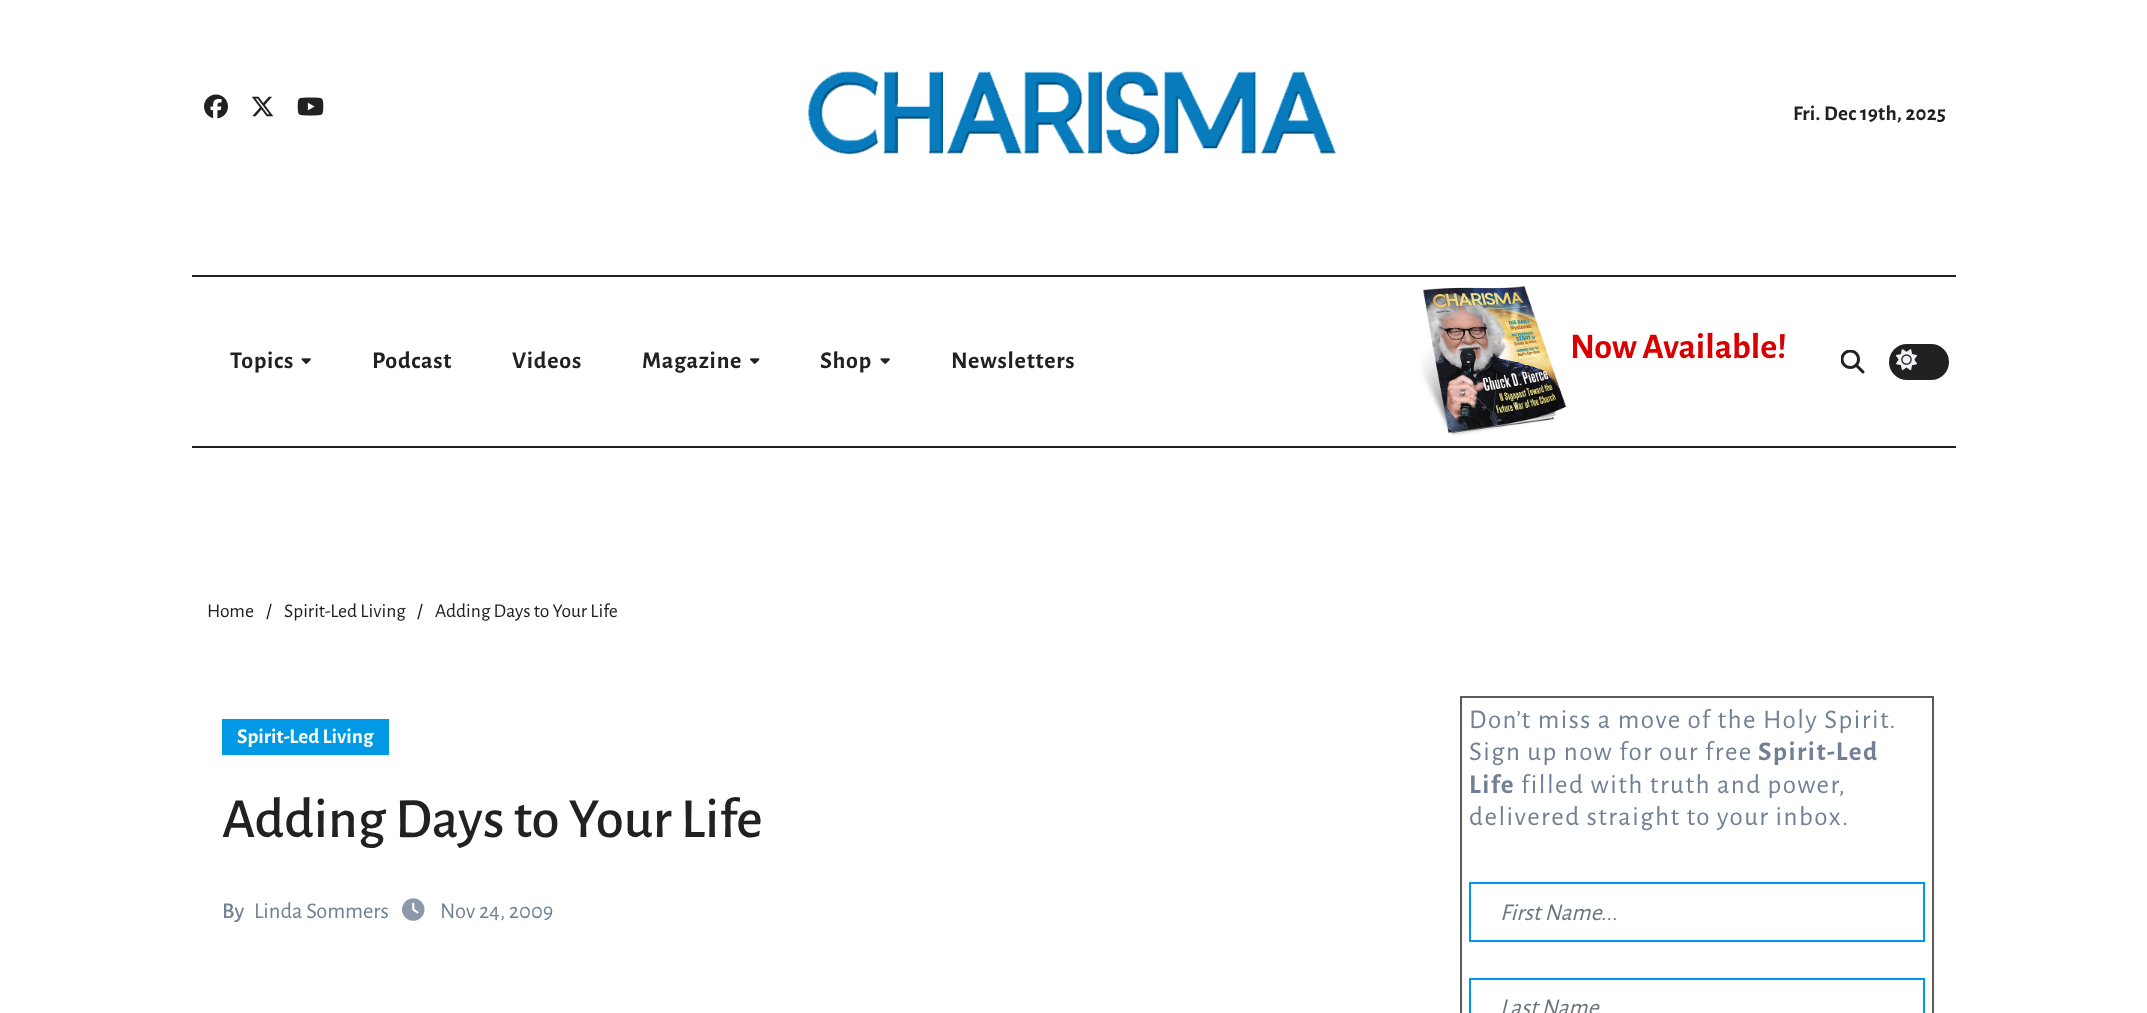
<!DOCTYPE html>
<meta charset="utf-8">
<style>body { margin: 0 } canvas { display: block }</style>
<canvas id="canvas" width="2147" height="1013"></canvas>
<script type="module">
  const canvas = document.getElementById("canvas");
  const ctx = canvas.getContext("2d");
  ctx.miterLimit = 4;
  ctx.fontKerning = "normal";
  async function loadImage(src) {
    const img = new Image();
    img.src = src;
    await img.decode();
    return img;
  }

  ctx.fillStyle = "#ffffff";
  ctx.fillRect(0, 0, 2147, 1013);
  ctx.drawImage(await loadImage("img1.png"), 204, 94, 24, 25);
  ctx.drawImage(await loadImage("img2.png"), 251, 96, 23, 21);
  ctx.drawImage(await loadImage("img3.png"), 297, 97, 27, 19);
  ctx.drawImage(await loadImage("img4.png"), 807, 71, 529, 84);
  ctx.letterSpacing = "0.25px";
  ctx.font = "bold 21px Alegreya Sans";
  ctx.fillStyle = "#212121";
  ctx.fillText("Fri. Dec 19th, 2025", 1793, 120);
  ctx.fillRect(192, 275, 1764, 2);
  ctx.fillRect(192, 446, 1764, 2);
  ctx.letterSpacing = "0.75px";
  ctx.font = "bold 24px Alegreya Sans";
  ctx.fillText("Topics", 230, 368);
  ctx.drawImage(await loadImage("img5.png"), 301, 358, 10, 6);
  ctx.fillText("Podcast", 372, 368);
  ctx.fillText("Videos", 512, 368);
  ctx.fillText("Magazine", 642, 368);
  ctx.drawImage(await loadImage("img6.png"), 750, 358, 10, 6);
  ctx.fillText("Shop", 820, 368);
  ctx.drawImage(await loadImage("img5.png"), 880, 358, 10, 6);
  ctx.fillText("Newsletters", 951, 368);
  ctx.drawImage(await loadImage("img7.png"), 1421, 286, 146, 150);
  ctx.letterSpacing = "0px";
  ctx.font = "bold 36px Alegreya Sans";
  ctx.fillStyle = "#da0000";
  ctx.fillText("Now Available!", 1570, 358);
  ctx.drawImage(await loadImage("img8.png"), 1841, 350, 24, 24);
  ctx.fillStyle = "#212121";
  ctx.beginPath();
  ctx.roundRect(1889, 344, 60, 36, 18);
  ctx.fill();
  ctx.drawImage(await loadImage("img9.png"), 1896, 349, 21, 22);
  ctx.font = "19.5px Alegreya Sans";
  ctx.fillText("Home", 207, 617);
  ctx.fillStyle = "#000000";
  ctx.fillText("/", 266, 617);
  ctx.fillStyle = "#212121";
  ctx.fillText("Spirit-Led Living", 284, 617);
  ctx.fillStyle = "#000000";
  ctx.fillText("/", 417, 617);
  ctx.fillStyle = "#212121";
  ctx.fillText("Adding Days to Your Life", 435, 617);
  ctx.fillStyle = "#0099e5";
  ctx.fillRect(222, 719, 167, 36);
  ctx.font = "bold 21px Alegreya Sans";
  ctx.fillStyle = "#ffffff";
  ctx.fillText("Spirit-Led Living", 237, 743);
  ctx.font = "500 57px Alegreya Sans";
  ctx.fillStyle = "#212121";
  ctx.fillText("Adding Days to Your Life", 222, 837);
  ctx.font = "500 22.5px Alegreya Sans";
  ctx.fillStyle = "#718096";
  ctx.fillText("By", 222, 918);
  ctx.font = "22.5px Alegreya Sans";
  ctx.fillText("Linda Sommers", 254, 918);
  ctx.drawImage(await loadImage("img10.png"), 402, 898, 23, 23);
  ctx.fillText("Nov 24, 2009", 440, 918);
  ctx.strokeStyle = "#5b5b5b";
  ctx.lineWidth = 2;
  ctx.strokeRect(1461, 697, 472, 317);
  ctx.letterSpacing = "1.5px";
  ctx.font = "27px Alegreya Sans";
  ctx.fillText("Don’t miss a move of the Holy Spirit.", 1469, 728);
  ctx.fillText("Sign up now for our free", 1469, 760);
  ctx.font = "bold 27px Alegreya Sans";
  ctx.fillText("Spirit-Led", 1758, 760);
  ctx.fillText("Life", 1469, 793);
  ctx.font = "27px Alegreya Sans";
  ctx.fillText("filled with truth and power,", 1521, 793);
  ctx.fillText("delivered straight to your inbox.", 1469, 825);
  ctx.strokeStyle = "#0099e5";
  ctx.strokeRect(1470, 883, 454, 58);
  ctx.letterSpacing = "0px";
  ctx.font = "italic 24px Alegreya Sans";
  ctx.fillStyle = "#6c757d";
  ctx.fillText("First Name...", 1500, 920);
  ctx.strokeRect(1470, 979, 454, 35);
  ctx.fillText("Last Name.", 1500, 1015);
</script>
